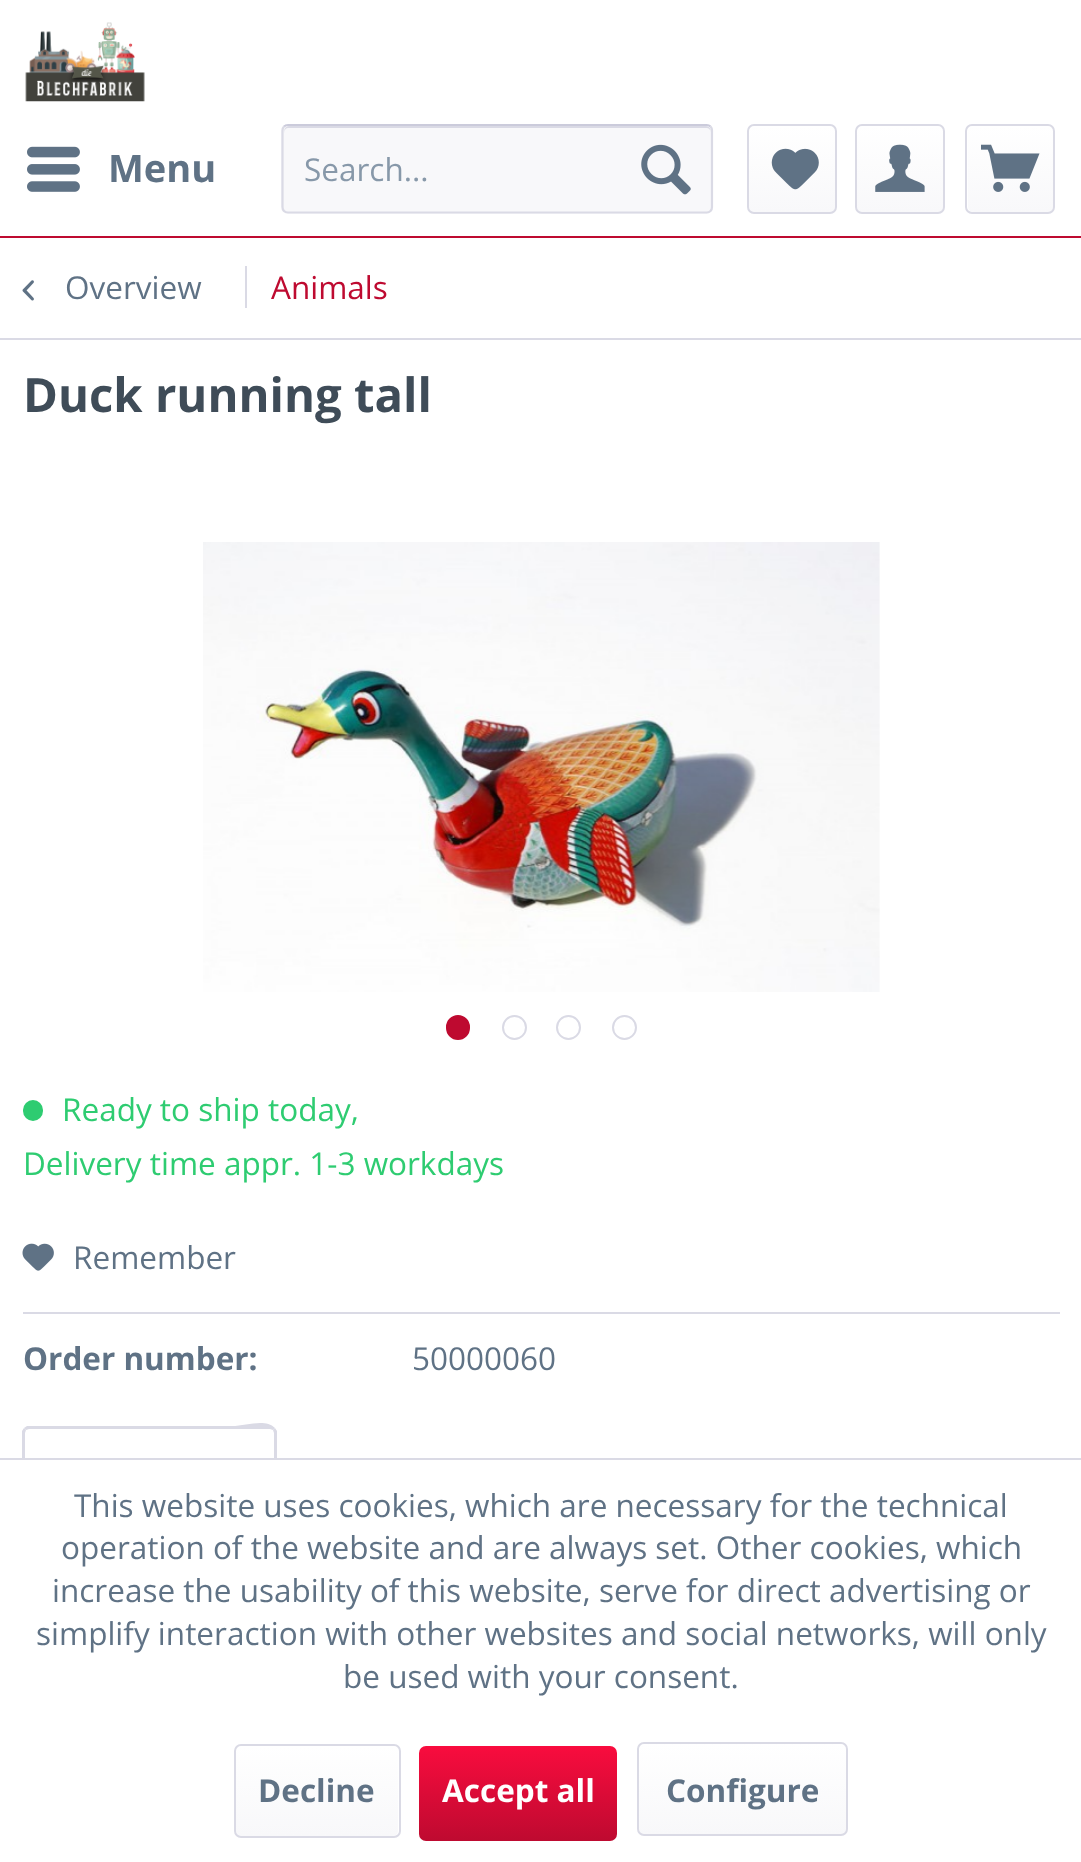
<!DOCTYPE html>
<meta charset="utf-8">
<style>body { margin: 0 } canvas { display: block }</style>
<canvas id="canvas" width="1081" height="1862"></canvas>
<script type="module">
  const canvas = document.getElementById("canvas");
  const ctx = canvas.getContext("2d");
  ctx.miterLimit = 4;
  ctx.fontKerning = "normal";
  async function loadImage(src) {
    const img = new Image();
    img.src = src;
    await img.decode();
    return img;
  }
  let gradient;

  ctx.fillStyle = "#ffffff";
  ctx.fillRect(0, 0, 1081, 1862);
  ctx.fillStyle = "#be0a30";
  ctx.fillRect(0, 236, 1081, 2);
  ctx.drawImage(await loadImage("img1.png"), 25, 22, 120, 80);
  ctx.drawImage(await loadImage("img2.png"), 27, 146, 53, 46);
  ctx.font = "bold 38px Open Sans";
  ctx.fillStyle = "#5f7285";
  ctx.fillText("Menu", 108, 182);
  ctx.fillStyle = "#f8f8fa";
  ctx.beginPath();
  ctx.roundRect(281, 124, 432, 90, 7);
  ctx.fill();
  ctx.fillStyle = "#dadae5";
  ctx.beginPath();
  ctx.moveTo(288, 128);
  ctx.lineTo(706, 128);
  ctx.bezierCurveTo(709, 128, 711, 130, 711, 133);
  ctx.bezierCurveTo(711, 130, 710, 126, 706, 126);
  ctx.lineTo(289, 126);
  ctx.bezierCurveTo(285, 126, 284, 130, 284, 133);
  ctx.bezierCurveTo(284, 130, 286, 128, 288, 128);
  ctx.closePath();
  ctx.fill();
  ctx.beginPath();
  ctx.moveTo(284, 126.5);
  ctx.bezierCurveTo(285, 125.5, 286.5, 125, 288, 125);
  ctx.lineTo(706.5, 125);
  ctx.bezierCurveTo(708, 125, 709.5, 125.5, 710.5, 126.5);
  ctx.strokeStyle = "#cbcbdb";
  ctx.lineWidth = 2.2;
  ctx.stroke();
  ctx.beginPath();
  ctx.moveTo(710.5, 126.5);
  ctx.bezierCurveTo(711.5, 127.5, 712, 129, 712, 130.5);
  ctx.lineTo(712, 207);
  ctx.bezierCurveTo(712, 208.5, 711.5, 210, 710.5, 211);
  ctx.bezierCurveTo(709.5, 212, 708, 212.5, 706.5, 212.5);
  ctx.lineTo(288, 212.5);
  ctx.bezierCurveTo(286.5, 212.5, 285, 212, 284, 211);
  ctx.bezierCurveTo(283, 210, 282.5, 208.5, 282.5, 207);
  ctx.lineTo(282.5, 130.5);
  ctx.bezierCurveTo(282.5, 129, 283, 127.5, 284, 126.5);
  ctx.strokeStyle = "#dadae5";
  ctx.stroke();
  ctx.font = "31.5px Open Sans";
  ctx.fillStyle = "#8798a9";
  ctx.fillText("Search...", 304, 181);
  ctx.drawImage(await loadImage("img3.png"), 641, 144, 50, 51);
  gradient = ctx.createLinearGradient(792, 126, 792, 212);
  gradient.addColorStop(0, "#ffffff");
  gradient.addColorStop(1, "#f8f8fa");
  ctx.fillStyle = gradient;
  ctx.beginPath();
  ctx.roundRect(749, 126, 86, 86, 5);
  ctx.fill();
  ctx.beginPath();
  ctx.roundRect(748, 125, 88, 88, 6);
  ctx.lineWidth = 2;
  ctx.stroke();
  ctx.drawImage(await loadImage("img4.png"), 771, 148, 48, 42);
  gradient = ctx.createLinearGradient(900, 126, 900, 212);
  gradient.addColorStop(0, "#ffffff");
  gradient.addColorStop(1, "#f8f8fa");
  ctx.fillStyle = gradient;
  ctx.beginPath();
  ctx.roundRect(857, 126, 86, 86, 5);
  ctx.fill();
  ctx.beginPath();
  ctx.roundRect(856, 125, 88, 88, 6);
  ctx.stroke();
  ctx.drawImage(await loadImage("img5.png"), 875, 144, 50, 48);
  gradient = ctx.createLinearGradient(1010, 126, 1010, 212);
  gradient.addColorStop(0, "#ffffff");
  gradient.addColorStop(1, "#f8f8fa");
  ctx.fillStyle = gradient;
  ctx.beginPath();
  ctx.roundRect(968, 126, 85, 86, 5);
  ctx.fill();
  ctx.beginPath();
  ctx.roundRect(966, 125, 88, 88, 6);
  ctx.stroke();
  ctx.drawImage(await loadImage("img6.png"), 981, 144, 59, 48);
  ctx.fillStyle = "#dadae5";
  ctx.fillRect(0, 338, 1081, 2);
  ctx.drawImage(await loadImage("img7.png"), 22, 280, 12, 21);
  ctx.fillStyle = "#5f7285";
  ctx.fillText("Overview", 65, 299);
  ctx.fillStyle = "#dadae5";
  ctx.fillRect(245, 266, 2, 42);
  ctx.fillStyle = "#be0a30";
  ctx.fillText("Animals", 271, 299);
  ctx.font = "bold 47.25px Open Sans";
  ctx.fillStyle = "#3f4c58";
  ctx.fillText("Duck running tall", 23, 412);
  ctx.drawImage(await loadImage("img8.png"), 203, 542, 677, 450);
  ctx.fillStyle = "#be0a30";
  ctx.beginPath();
  ctx.roundRect(447, 1016, 22, 23, 11);
  ctx.fill();
  ctx.strokeStyle = "#be0a30";
  ctx.stroke();
  ctx.beginPath();
  ctx.arc(514.5, 1027.5, 11.5, 0, Math.PI * 2);
  ctx.strokeStyle = "#dadae5";
  ctx.stroke();
  ctx.beginPath();
  ctx.arc(568.5, 1027.5, 11.5, 0, Math.PI * 2);
  ctx.stroke();
  ctx.beginPath();
  ctx.arc(624.5, 1027.5, 11.5, 0, Math.PI * 2);
  ctx.stroke();
  ctx.fillStyle = "#2ecc71";
  ctx.beginPath();
  ctx.roundRect(23, 1100, 20, 21, 10);
  ctx.fill();
  ctx.font = "31.5px Open Sans";
  ctx.fillText("Ready to ship today,", 62, 1121);
  ctx.fillText("Delivery time appr. 1-3 workdays", 23, 1175);
  ctx.fillStyle = "#dadae5";
  ctx.fillRect(23, 1312, 1037, 2);
  ctx.drawImage(await loadImage("img9.png"), 22, 1243, 32, 28);
  ctx.fillStyle = "#5f7285";
  ctx.fillText("Remember", 73, 1269);
  ctx.font = "bold 31.5px Open Sans";
  ctx.fillText("Order number:", 23, 1370);
  ctx.font = "31.5px Open Sans";
  ctx.fillText("50000060", 412, 1370);
  ctx.fillStyle = "#dadae5";
  ctx.beginPath();
  ctx.moveTo(29, 1429);
  ctx.lineTo(26, 1430);
  ctx.lineTo(24, 1428);
  ctx.lineTo(27, 1426);
  ctx.lineTo(232, 1426);
  ctx.bezierCurveTo(246, 1426, 265, 1418, 275, 1428);
  ctx.lineTo(273, 1430);
  ctx.lineTo(270, 1429);
  ctx.closePath();
  ctx.fill();
  ctx.beginPath();
  ctx.moveTo(277, 1431);
  ctx.lineTo(277, 1530);
  ctx.lineTo(274, 1527);
  ctx.lineTo(274, 1433);
  ctx.lineTo(273, 1430);
  ctx.lineTo(275, 1428);
  ctx.closePath();
  ctx.fill();
  ctx.beginPath();
  ctx.moveTo(22, 1530);
  ctx.lineTo(22, 1431);
  ctx.lineTo(24, 1428);
  ctx.lineTo(26, 1430);
  ctx.lineTo(25, 1433);
  ctx.lineTo(25, 1528);
  ctx.closePath();
  ctx.fill();
  ctx.fillStyle = "#ffffff";
  ctx.fillRect(22, 1460, 255, 70);
  ctx.fillStyle = "#dadae5";
  ctx.fillRect(0, 1458, 1081, 2);
  ctx.fillStyle = "#5f7285";
  ctx.fillText("This website uses cookies, which are necessary for the technical", 74, 1517);
  ctx.fillText("operation of the website and are always set. Other cookies, which", 61, 1559);
  ctx.fillText("increase the usability of this website, serve for direct advertising or", 52, 1602);
  ctx.fillText("simplify interaction with other websites and social networks, will only", 36, 1645);
  ctx.fillText("be used with your consent.", 343, 1688);
  gradient = ctx.createLinearGradient(317, 1746, 317, 1836);
  gradient.addColorStop(0, "#ffffff");
  gradient.addColorStop(1, "#f8f8fa");
  ctx.fillStyle = gradient;
  ctx.beginPath();
  ctx.roundRect(236, 1746, 162, 90, 5);
  ctx.fill();
  ctx.beginPath();
  ctx.roundRect(235, 1745, 165, 92, 6);
  ctx.stroke();
  ctx.font = "bold 31.5px Open Sans";
  ctx.fillStyle = "#5f7285";
  ctx.fillText("Decline", 258, 1802);
  gradient = ctx.createLinearGradient(518, 1746, 518, 1841);
  gradient.addColorStop(0, "#f90c3e");
  gradient.addColorStop(1, "#be0a30");
  ctx.fillStyle = gradient;
  ctx.beginPath();
  ctx.roundRect(419, 1746, 198, 95, 7);
  ctx.fill();
  ctx.fillStyle = "#ffffff";
  ctx.fillText("Accept all", 442, 1802);
  gradient = ctx.createLinearGradient(743, 1744, 743, 1834);
  gradient.addColorStop(0, "#ffffff");
  gradient.addColorStop(1, "#f8f8fa");
  ctx.fillStyle = gradient;
  ctx.beginPath();
  ctx.roundRect(639, 1744, 207, 90, 5);
  ctx.fill();
  ctx.beginPath();
  ctx.roundRect(638, 1743, 209, 92, 6);
  ctx.stroke();
  ctx.fillStyle = "#5f7285";
  ctx.fillText("Configure", 666, 1802);
</script>
